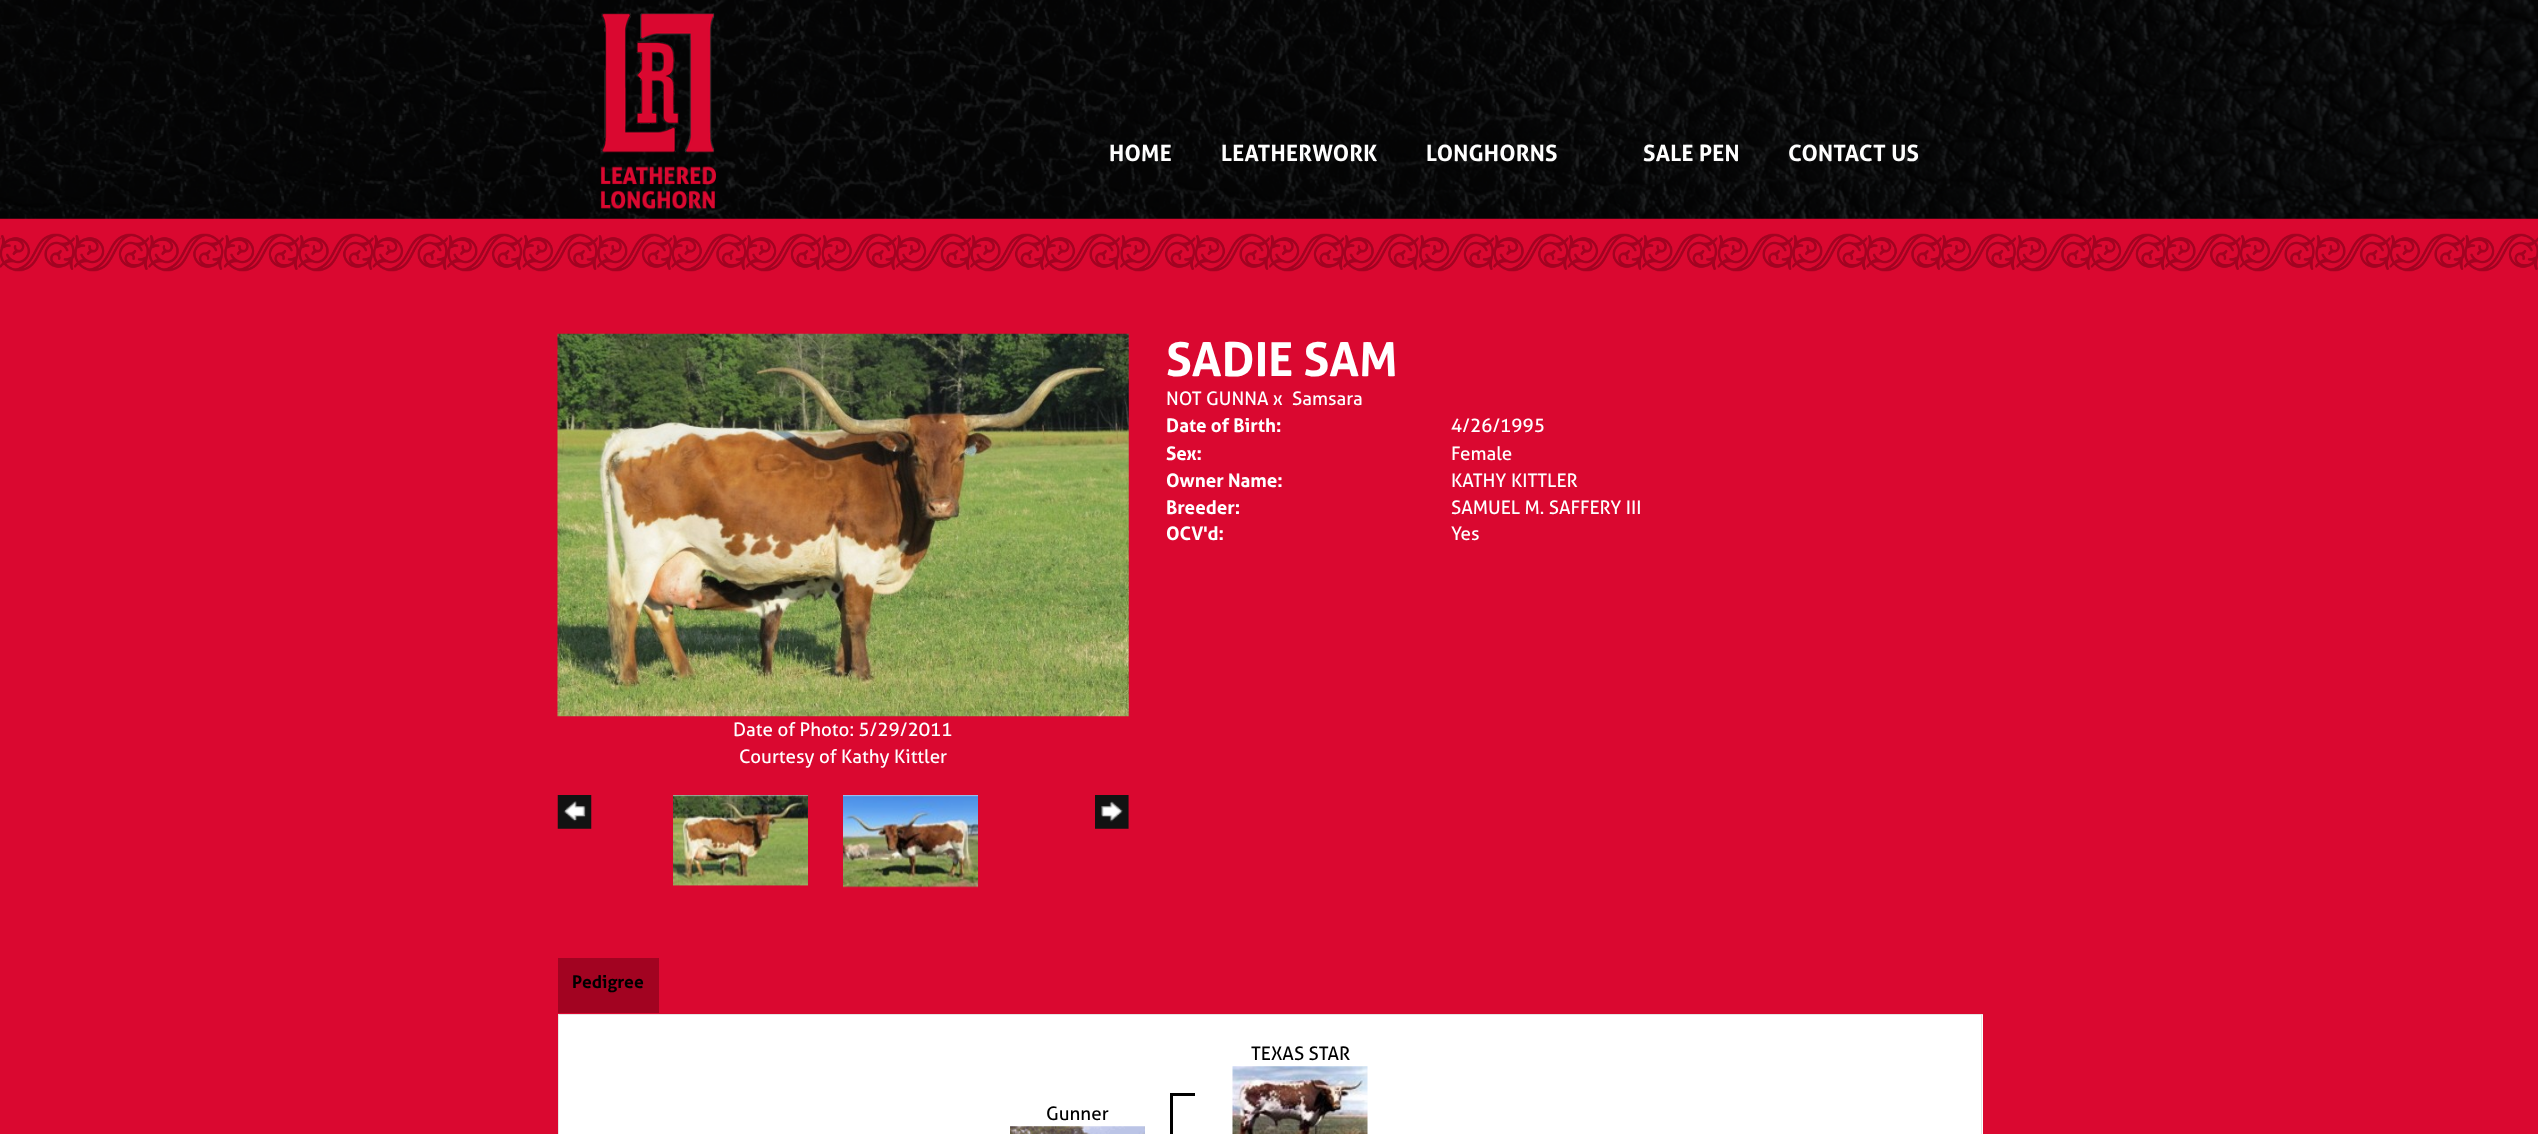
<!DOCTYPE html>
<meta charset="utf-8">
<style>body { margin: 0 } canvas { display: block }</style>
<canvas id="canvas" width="2538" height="1134"></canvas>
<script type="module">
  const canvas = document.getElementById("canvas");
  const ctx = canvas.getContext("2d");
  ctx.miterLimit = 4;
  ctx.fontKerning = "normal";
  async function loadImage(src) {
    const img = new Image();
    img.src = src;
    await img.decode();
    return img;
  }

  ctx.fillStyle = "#da0830";
  ctx.fillRect(0, 0, 2538, 1134);
  ctx.drawImage(await loadImage("img1.png"), 0, 0, 2538, 219);
  ctx.drawImage(await loadImage("img2.png"), 600, 13, 116, 197);
  ctx.letterSpacing = "0.25px";
  ctx.font = "bold 22.5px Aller";
  ctx.fillStyle = "#ffffff";
  ctx.fillText("HOME", 1109, 161);
  ctx.fillText("LEATHERWORK", 1221, 161);
  ctx.fillText("LONGHORNS", 1426, 161);
  ctx.fillText("SALE PEN", 1643, 161);
  ctx.fillText("CONTACT US", 1788, 161);
  ctx.drawImage(await loadImage("img3.png"), 0, 233, 2538, 39);
  ctx.letterSpacing = "0px";
  ctx.font = "bold 47px Aller";
  ctx.fillText("SADIE SAM", 1166, 376);
  ctx.font = "18.75px Aller";
  ctx.fillText("NOT GUNNA x", 1166, 405);
  ctx.fillText("Samsara", 1292, 405);
  ctx.font = "bold 18.75px Aller";
  ctx.fillText("Date of Birth:", 1166, 432);
  ctx.font = "18.75px Aller";
  ctx.fillText("4/26/1995", 1451, 432);
  ctx.font = "bold 18.75px Aller";
  ctx.fillText("Sex:", 1166, 460);
  ctx.font = "18.75px Aller";
  ctx.fillText("Female", 1451, 460);
  ctx.font = "bold 18.75px Aller";
  ctx.fillText("Owner Name:", 1166, 487);
  ctx.font = "18.75px Aller";
  ctx.fillText("KATHY KITTLER", 1451, 487);
  ctx.font = "bold 18.75px Aller";
  ctx.fillText("Breeder:", 1166, 514);
  ctx.font = "18.75px Aller";
  ctx.fillText("SAMUEL M. SAFFERY III", 1451, 514);
  ctx.font = "bold 18.75px Aller";
  ctx.fillText("OCV'd:", 1166, 540);
  ctx.font = "18.75px Aller";
  ctx.fillText("Yes", 1451, 540);
  ctx.drawImage(await loadImage("img4.png"), 557, 333, 572, 384);
  ctx.fillText("Date of Photo: 5/29/2011", 733, 736);
  ctx.fillText("Courtesy of Kathy Kittler", 739, 763);
  ctx.drawImage(await loadImage("img5.png"), 557, 795, 35, 34);
  ctx.fillRect(673, 795, 135, 2);
  ctx.drawImage(await loadImage("img6.png"), 673, 795, 135, 91);
  ctx.fillRect(843, 795, 135, 2);
  ctx.drawImage(await loadImage("img7.png"), 843, 795, 135, 93);
  ctx.drawImage(await loadImage("img8.png"), 1095, 795, 34, 34);
  ctx.fillStyle = "#e5e5e5";
  ctx.fillRect(558, 1014, 1425, 1);
  ctx.fillStyle = "#a20321";
  ctx.fillRect(558, 958, 101, 55);
  ctx.font = "bold 17.5px Aller";
  ctx.fillStyle = "#000000";
  ctx.fillText("Pedigree", 572, 988);
  ctx.fillStyle = "#ffffff";
  ctx.fillRect(559, 1015, 1424, 119);
  ctx.fillStyle = "#e5e5e5";
  ctx.beginPath();
  ctx.moveTo(1982, 1015);
  ctx.lineTo(1981, 1015);
  ctx.lineTo(1981, 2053);
  ctx.lineTo(1982, 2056);
  ctx.closePath();
  ctx.fill();
  ctx.beginPath();
  ctx.moveTo(558, 1015);
  ctx.lineTo(559, 1015);
  ctx.lineTo(559, 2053);
  ctx.lineTo(558, 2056);
  ctx.lineTo(558, 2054);
  ctx.closePath();
  ctx.fill();
  ctx.font = "18.75px Aller";
  ctx.fillStyle = "#000000";
  ctx.fillText("TEXAS STAR", 1251, 1060);
  ctx.drawImage(await loadImage("img9.png"), 1232, 1066, 136, 68);
  ctx.fillText("Gunner", 1046, 1120);
  ctx.drawImage(await loadImage("img10.png"), 1010, 1126, 135, 8);
  ctx.fillRect(1170, 1093, 25, 3);
  ctx.fillRect(1170, 1093, 3, 41);
</script>
